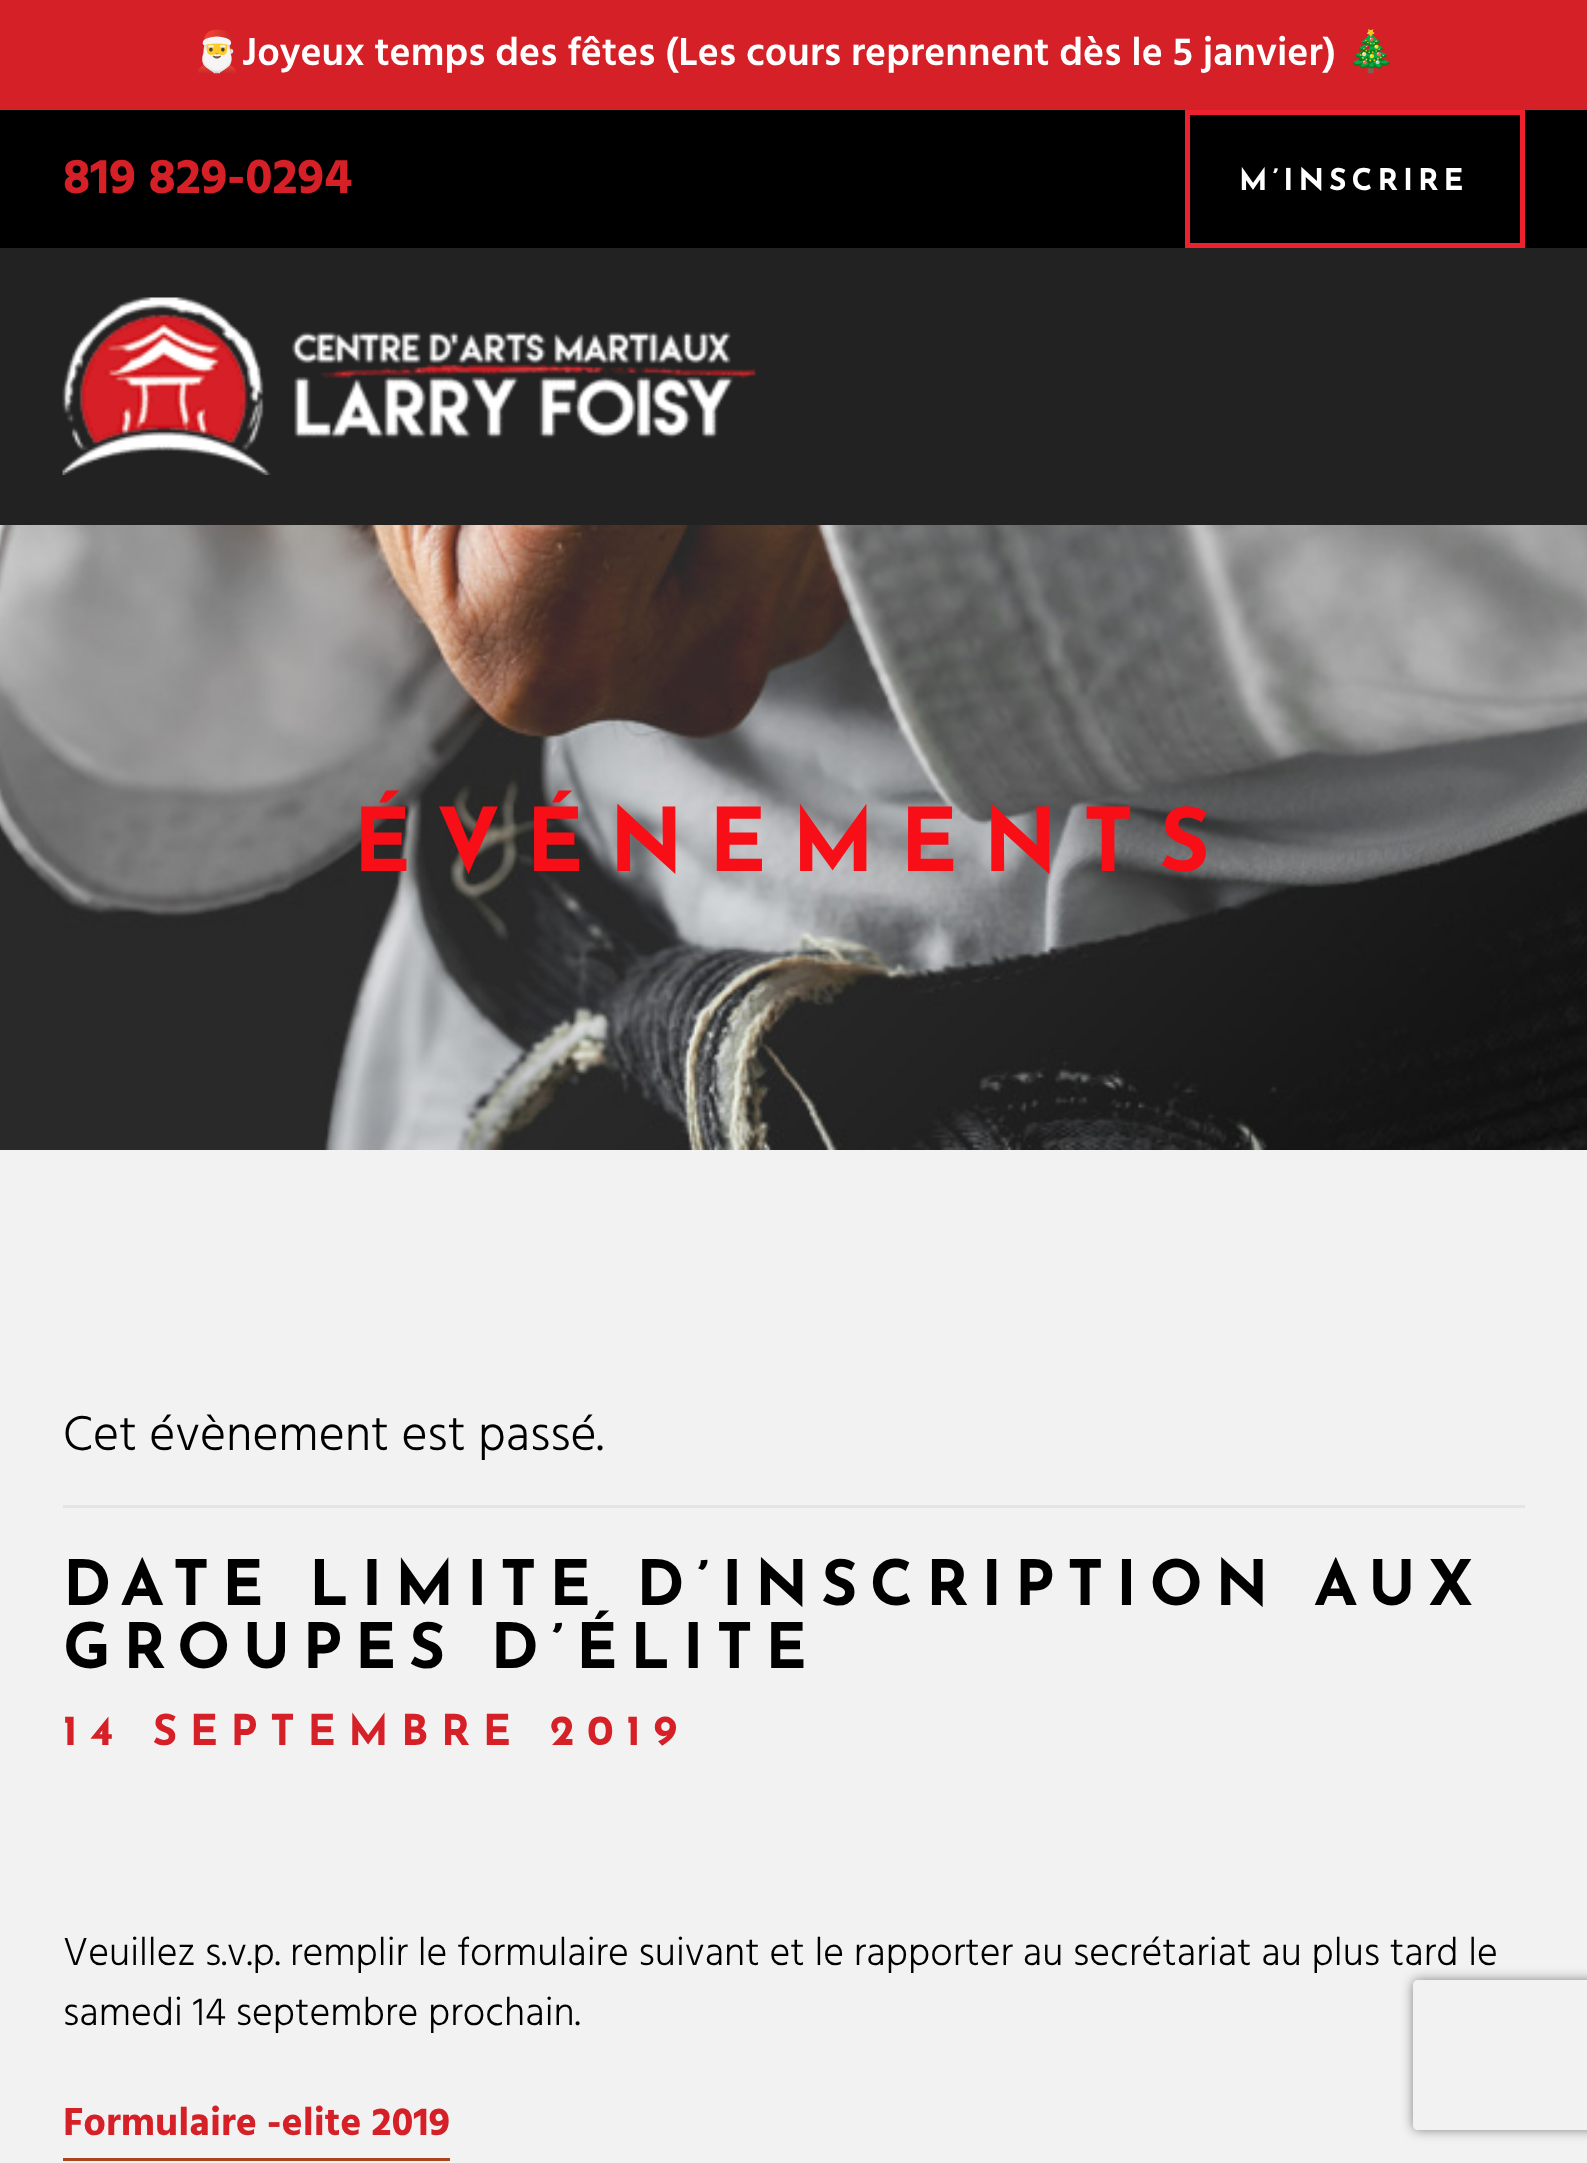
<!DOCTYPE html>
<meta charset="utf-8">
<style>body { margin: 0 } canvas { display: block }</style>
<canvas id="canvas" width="1587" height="2163"></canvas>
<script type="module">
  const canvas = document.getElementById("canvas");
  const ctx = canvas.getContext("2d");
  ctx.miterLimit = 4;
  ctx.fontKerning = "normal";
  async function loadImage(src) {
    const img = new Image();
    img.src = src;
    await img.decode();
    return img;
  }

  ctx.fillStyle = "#f2f2f2";
  ctx.fillRect(0, 0, 1587, 2163);
  ctx.fillStyle = "#d62027";
  ctx.fillRect(0, 0, 1587, 110);
  ctx.font = "bold 40px Noto Color Emoji";
  ctx.fillStyle = "#ffffff";
  ctx.fillText("🎅", 192, 65);
  ctx.font = "600 40px Hind";
  ctx.fillText("Joyeux temps des fêtes (Les cours reprennent dès le 5 janvier)", 242, 65);
  ctx.font = "bold 40px Noto Color Emoji";
  ctx.fillText("🎄", 1346, 65);
  ctx.fillStyle = "#000000";
  ctx.fillRect(0, 110, 1587, 138);
  ctx.font = "bold 50px Hind";
  ctx.fillStyle = "#d62027";
  ctx.fillText("819 829-0294", 63, 193);
  ctx.strokeStyle = "#ee212f";
  ctx.lineWidth = 5;
  ctx.strokeRect(1187.5, 112.5, 335, 133);
  ctx.letterSpacing = "5px";
  ctx.font = "100 30px Josefin Sans";
  ctx.fillStyle = "#ffffff";
  ctx.fillText("M’INSCRIRE", 1239, 190);
  ctx.fillStyle = "#222222";
  ctx.fillRect(0, 248, 1587, 277);
  ctx.drawImage(await loadImage("img1.png"), 62, 297, 694, 178);
  ctx.drawImage(await loadImage("img2.png"), 0, 525, 1587, 625);
  ctx.letterSpacing = "25px";
  ctx.font = "100 87.5px Josefin Sans";
  ctx.fillStyle = "#f80e17";
  ctx.fillText("ÉVÉNEMENTS", 353, 871);
  ctx.fillStyle = "#e4e4e4";
  ctx.fillRect(63, 1505, 1462, 3);
  ctx.letterSpacing = "0px";
  ctx.font = "300 50px Hind";
  ctx.fillStyle = "#000000";
  ctx.fillText("Cet évènement est passé.", 63, 1450);
  ctx.letterSpacing = "12.5px";
  ctx.font = "100 62.5px Josefin Sans";
  ctx.fillText("DATE LIMITE D’INSCRIPTION AUX", 63, 1605);
  ctx.fillText("GROUPES D’ÉLITE", 63, 1668);
  ctx.font = "100 42.5px Josefin Sans";
  ctx.fillStyle = "#d62027";
  ctx.fillText("14 SEPTEMBRE 2019", 63, 1745);
  ctx.letterSpacing = "0px";
  ctx.font = "300 40px Hind";
  ctx.fillStyle = "#000000";
  ctx.fillText("Veuillez s.v.p. remplir le formulaire suivant et le rapporter au secrétariat au plus tard le", 63, 1965);
  ctx.fillText("samedi 14 septembre prochain.", 63, 2025);
  ctx.font = "bold 40px Hind";
  ctx.fillStyle = "#d62027";
  ctx.fillText("Formulaire -elite 2019", 63, 2135);
  ctx.fillStyle = "#ab441c";
  ctx.fillRect(63, 2158, 387, 3);
  ctx.save();
  ctx.beginPath();
  ctx.moveTo(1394, 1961);
  ctx.lineTo(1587, 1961);
  ctx.lineTo(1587, 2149);
  ctx.lineTo(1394, 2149);
  ctx.closePath();
  ctx.moveTo(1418, 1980);
  ctx.lineTo(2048, 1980);
  ctx.bezierCurveTo(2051, 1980, 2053, 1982, 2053, 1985);
  ctx.lineTo(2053, 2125);
  ctx.bezierCurveTo(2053, 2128, 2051, 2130, 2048, 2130);
  ctx.lineTo(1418, 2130);
  ctx.bezierCurveTo(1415, 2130, 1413, 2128, 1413, 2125);
  ctx.lineTo(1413, 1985);
  ctx.bezierCurveTo(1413, 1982, 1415, 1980, 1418, 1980);
  ctx.closePath();
  ctx.clip("evenodd");
  ctx.fillStyle = "#808080";
  ctx.filter = "blur(6px)";
  ctx.beginPath();
  ctx.roundRect(1413, 1980, 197, 150, 5);
  ctx.fill();
  ctx.filter = "none";
  ctx.restore();
</script>
